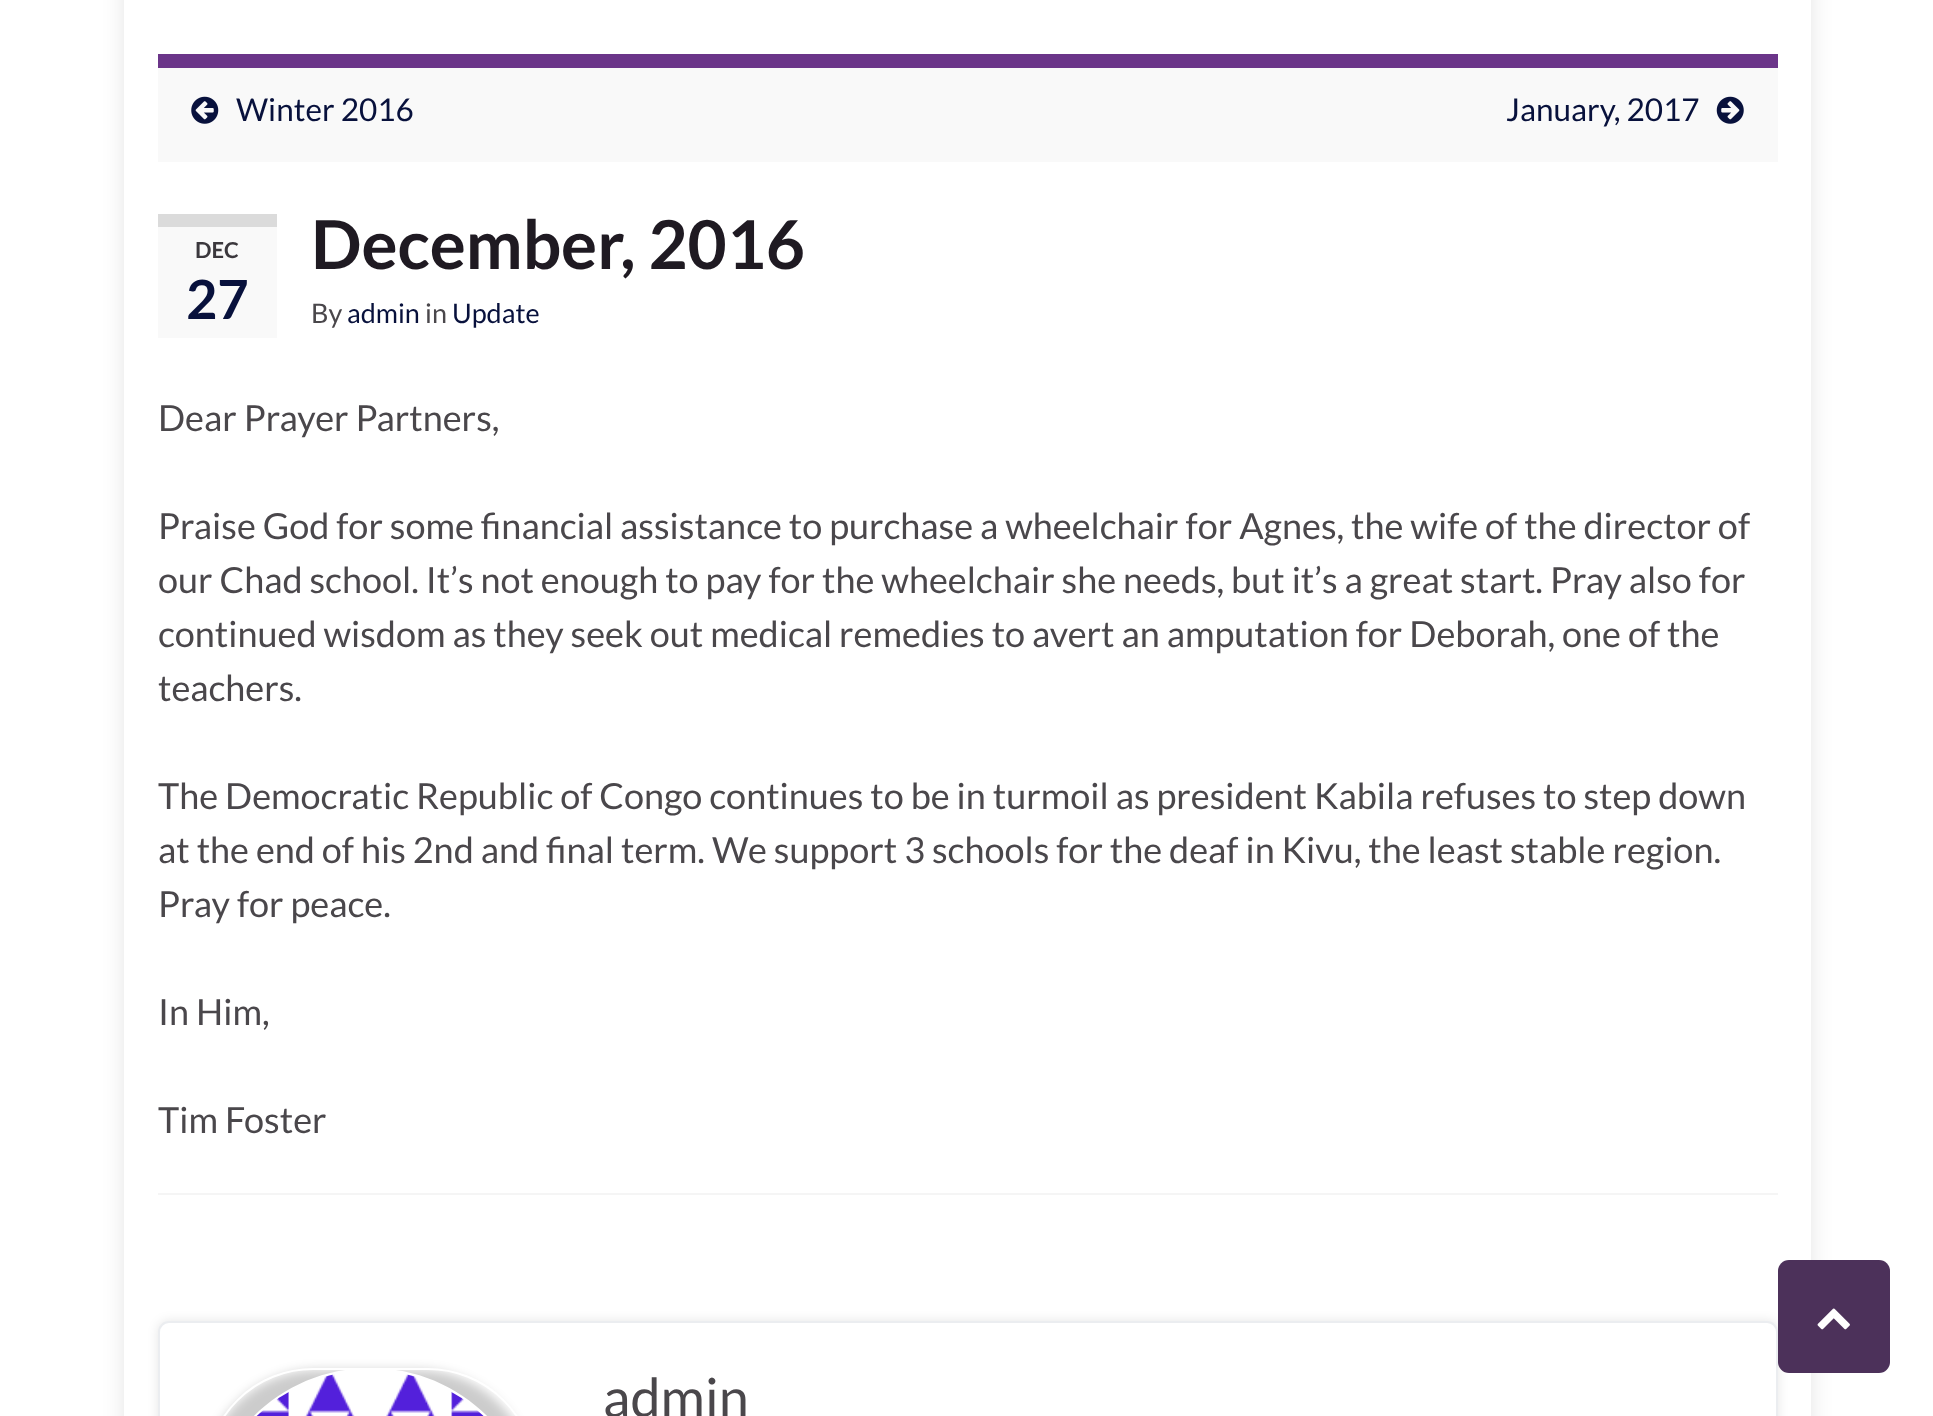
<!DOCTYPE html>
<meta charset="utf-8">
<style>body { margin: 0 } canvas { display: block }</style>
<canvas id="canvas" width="1933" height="1416"></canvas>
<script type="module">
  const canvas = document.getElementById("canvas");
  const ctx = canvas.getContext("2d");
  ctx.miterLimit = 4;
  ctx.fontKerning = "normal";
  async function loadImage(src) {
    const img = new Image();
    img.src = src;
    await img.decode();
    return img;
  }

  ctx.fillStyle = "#ffffff";
  ctx.fillRect(0, 0, 1933, 1416);
  ctx.save();
  ctx.beginPath();
  ctx.moveTo(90, 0);
  ctx.lineTo(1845, 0);
  ctx.lineTo(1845, 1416);
  ctx.lineTo(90, 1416);
  ctx.closePath();
  ctx.moveTo(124, -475);
  ctx.lineTo(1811, -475);
  ctx.lineTo(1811, 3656);
  ctx.lineTo(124, 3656);
  ctx.closePath();
  ctx.clip("evenodd");
  ctx.fillStyle = "rgba(0, 0, 0, 0.1)";
  ctx.filter = "blur(11px)";
  ctx.beginPath();
  ctx.rect(124, -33, 1687, 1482);
  ctx.fill();
  ctx.filter = "none";
  ctx.restore();
  ctx.fillStyle = "#f9f9f9";
  ctx.fillRect(158, 68, 1620, 94);
  ctx.fillStyle = "#6b3589";
  ctx.fillRect(158, 54, 1620, 14);
  ctx.drawImage(await loadImage("img1.png"), 191, 96, 28, 28);
  ctx.font = "31.5px Lato";
  ctx.fillStyle = "#08113c";
  ctx.fillText("Winter 2016", 236, 121);
  ctx.fillText("January, 2017", 1506, 121);
  ctx.drawImage(await loadImage("img2.png"), 1716, 96, 28, 28);
  ctx.fillStyle = "#f9f9f9";
  ctx.fillRect(158, 227, 119, 111);
  ctx.fillStyle = "#dbdbdb";
  ctx.fillRect(158, 214, 119, 13);
  ctx.font = "bold 22px Lato";
  ctx.fillStyle = "#3b383d";
  ctx.fillText("DEC", 195, 258);
  ctx.font = "bold 54px Lato";
  ctx.fillStyle = "#08113c";
  ctx.fillText("27", 186, 319);
  ctx.font = "bold 67.5px Lato";
  ctx.fillStyle = "#1f1a22";
  ctx.fillText("December, 2016", 311, 269);
  ctx.font = "27px Lato";
  ctx.fillStyle = "#4a474b";
  ctx.fillText("By", 311, 323);
  ctx.fillStyle = "#08113c";
  ctx.fillText("admin", 347, 323);
  ctx.fillStyle = "#4a474b";
  ctx.fillText("in", 425, 323);
  ctx.fillStyle = "#08113c";
  ctx.fillText("Update", 452, 323);
  ctx.font = "36px Lato";
  ctx.fillStyle = "#4a474b";
  ctx.fillText("Dear Prayer Partners,", 158, 431);
  ctx.fillText("Praise God for some financial assistance to purchase a wheelchair for Agnes, the wife of the director of", 158, 539);
  ctx.fillText("our Chad school. It’s not enough to pay for the wheelchair she needs, but it’s a great start. Pray also for", 158, 593);
  ctx.fillText("continued wisdom as they seek out medical remedies to avert an amputation for Deborah, one of the", 158, 647);
  ctx.fillText("teachers.", 158, 701);
  ctx.fillText("The Democratic Republic of Congo continues to be in turmoil as president Kabila refuses to step down", 158, 809);
  ctx.fillText("at the end of his 2nd and final term. We support 3 schools for the deaf in Kivu, the least stable region.", 158, 863);
  ctx.fillText("Pray for peace.", 158, 917);
  ctx.fillText("In Him,", 158, 1025);
  ctx.fillText("Tim Foster", 158, 1133);
  ctx.fillStyle = "#f5f5f5";
  ctx.fillRect(158, 1193, 1620, 2);
  ctx.fillStyle = "rgba(0, 0, 0, 0.1)";
  ctx.filter = "blur(5.5px)";
  ctx.beginPath();
  ctx.roundRect(158, 1321, 1620, 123, 11);
  ctx.fill();
  ctx.filter = "none";
  ctx.fillStyle = "#ffffff";
  ctx.beginPath();
  ctx.roundRect(159, 1322, 1618, 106, 10);
  ctx.fill();
  ctx.strokeStyle = "#ebedf0";
  ctx.lineWidth = 2;
  ctx.stroke();
  ctx.save();
  ctx.beginPath();
  ctx.moveTo(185, 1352);
  ctx.lineTo(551, 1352);
  ctx.lineTo(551, 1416);
  ctx.lineTo(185, 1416);
  ctx.closePath();
  ctx.moveTo(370.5, 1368);
  ctx.bezierCurveTo(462, 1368, 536, 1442, 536, 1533.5);
  ctx.bezierCurveTo(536, 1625, 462, 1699, 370.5, 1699);
  ctx.bezierCurveTo(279, 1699, 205, 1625, 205, 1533.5);
  ctx.bezierCurveTo(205, 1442, 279, 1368, 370.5, 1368);
  ctx.closePath();
  ctx.clip("evenodd");
  ctx.fillStyle = "rgba(0, 0, 0, 0.2)";
  ctx.filter = "blur(5.5px)";
  ctx.beginPath();
  ctx.roundRect(203, 1370, 330, 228, 165);
  ctx.fill();
  ctx.filter = "none";
  ctx.restore();
  ctx.beginPath();
  ctx.roundRect(206, 1369, 329, 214, 164.5);
  ctx.strokeStyle = "#ffffff";
  ctx.stroke();
  ctx.drawImage(await loadImage("img3.png"), 256, 1374, 228, 42);
  ctx.font = "54px Lato";
  ctx.fillStyle = "#4a474b";
  ctx.fillText("admin", 603, 1417);
  ctx.fillStyle = "#4c315a";
  ctx.beginPath();
  ctx.roundRect(1778, 1260, 112, 113, 11);
  ctx.fill();
  ctx.drawImage(await loadImage("img4.png"), 1817, 1308, 33, 22);
</script>
